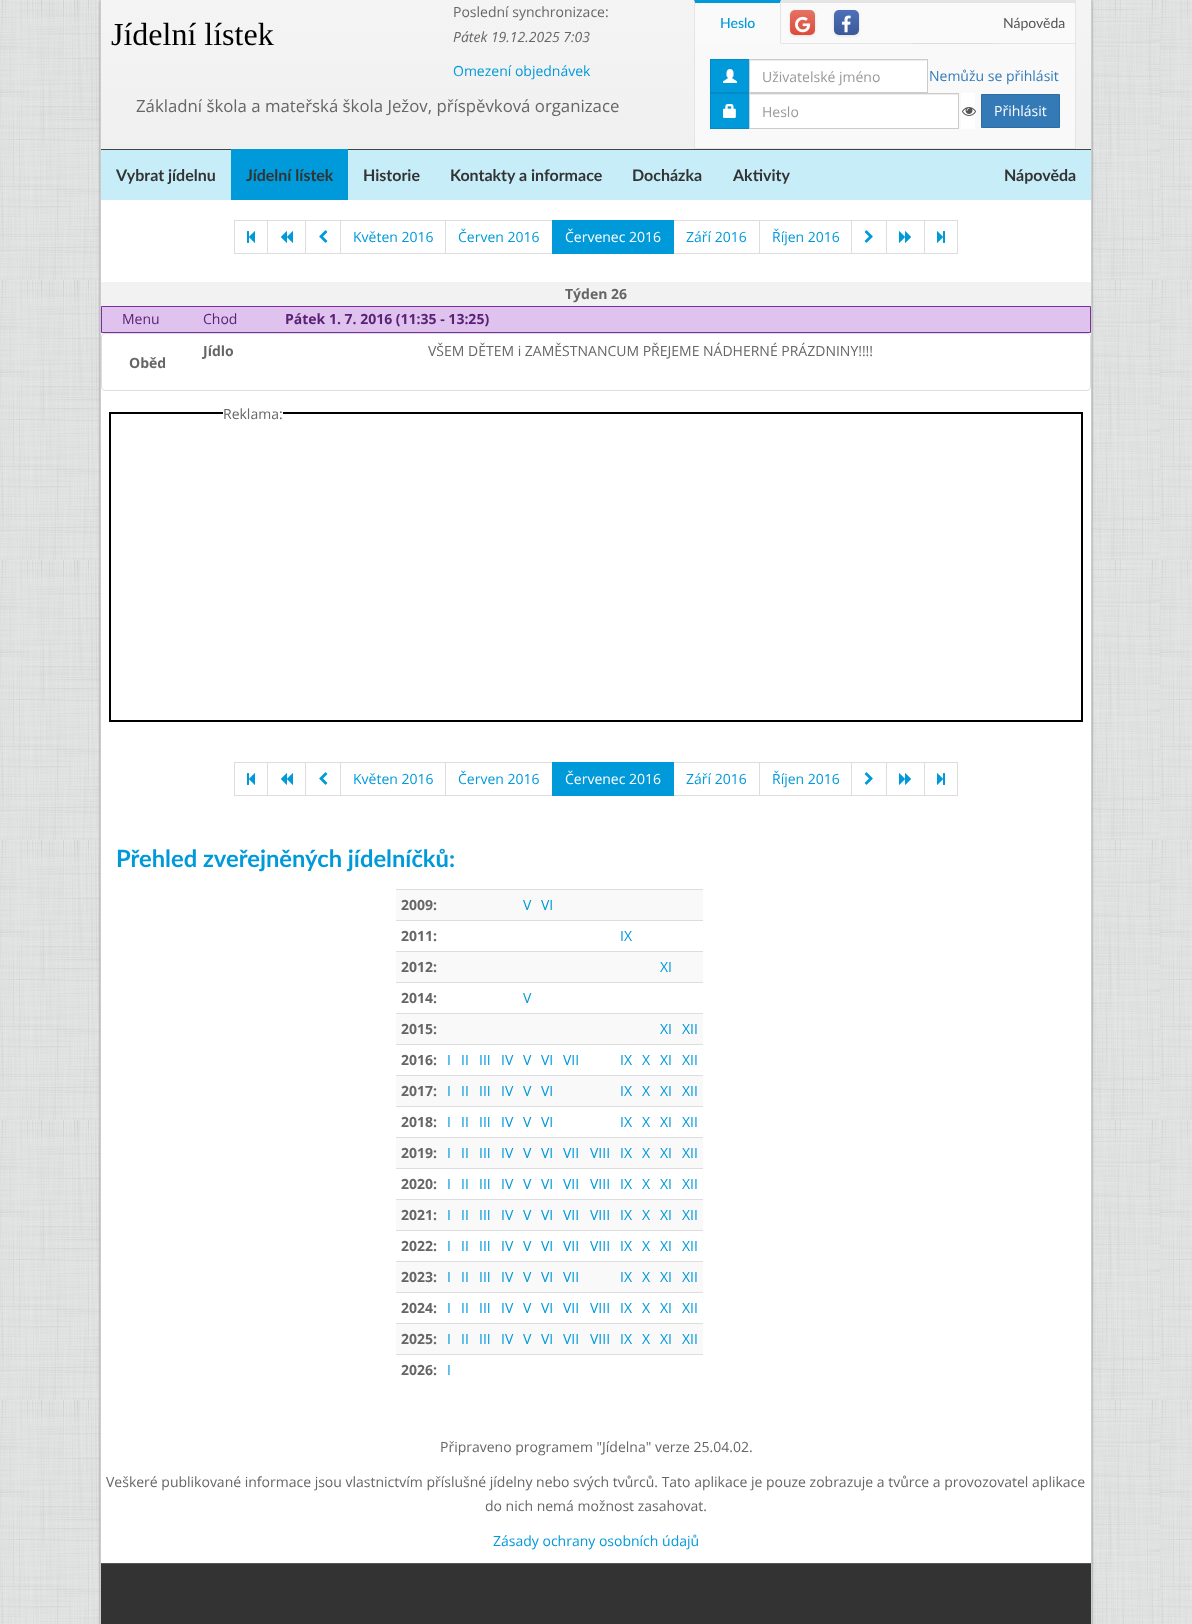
<!DOCTYPE html>
<meta charset="utf-8">
<style>body { margin: 0 } canvas { display: block }</style>
<canvas id="canvas" width="1192" height="1624"></canvas>
<script type="module">
  const canvas = document.getElementById("canvas");
  const ctx = canvas.getContext("2d");
  ctx.miterLimit = 4;
  ctx.fontKerning = "normal";
  async function loadImage(src) {
    const img = new Image();
    img.src = src;
    await img.decode();
    return img;
  }
  let gradient;

  ctx.fillStyle = "#ffffff";
  ctx.fillRect(0, 0, 1192, 1624);
  ctx.drawImage(await loadImage("img1.png"), 0, 0, 1192, 1624);
  ctx.fillStyle = "rgba(0, 0, 0, 0.4)";
  ctx.filter = "blur(1px)";
  ctx.beginPath();
  ctx.rect(100, 1, 992, 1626);
  ctx.fill();
  ctx.filter = "none";
  ctx.fillStyle = "#ffffff";
  ctx.fillRect(101, 200, 990, 1363);
  ctx.fillStyle = "#cccccc";
  ctx.fillRect(1091, 0, 1, 1624);
  ctx.fillRect(100, 0, 1, 1624);
  gradient = ctx.createLinearGradient(596, 149, 596, 0);
  gradient.addColorStop(0, "#f0f0f0");
  gradient.addColorStop(1, "#f4f4f4");
  ctx.fillStyle = gradient;
  ctx.fillRect(101, 0, 990, 149);
  ctx.font = "32px Liberation Serif";
  ctx.fillStyle = "#000000";
  ctx.fillText("Jídelní lístek", 111, 45);
  ctx.font = "14px Open Sans";
  ctx.fillStyle = "#666666";
  ctx.fillText("Poslední synchronizace:", 453, 17);
  ctx.font = "italic 14px Open Sans";
  ctx.fillText("Pátek 19.12.2025 7:03", 453, 42);
  ctx.font = "14px Open Sans";
  ctx.fillStyle = "#0099da";
  ctx.fillText("Omezení objednávek", 453, 76);
  ctx.font = "16.8px Open Sans";
  ctx.fillStyle = "#666666";
  ctx.fillText("Základní škola a mateřská škola Ježov, příspěvková organizace", 136, 112);
  ctx.fillStyle = "#fafafa";
  ctx.fillRect(695, 3, 380, 40);
  ctx.fillStyle = "#e5e5e5";
  ctx.fillRect(694, 0, 381, 3);
  ctx.fillRect(1075, 0, 1, 149);
  ctx.fillStyle = "#dddddd";
  ctx.fillRect(913, 43, 163, 1);
  ctx.fillStyle = "#e5e5e5";
  ctx.fillRect(780, 43, 133, 1);
  ctx.fillStyle = "rgba(0, 0, 0, 0.1)";
  ctx.filter = "blur(1.5px)";
  ctx.beginPath();
  ctx.roundRect(790, 11, 25, 25, 5);
  ctx.fill();
  ctx.filter = "none";
  gradient = ctx.createLinearGradient(803, 35, 803, 10);
  gradient.addColorStop(0, "#dd4b39");
  gradient.addColorStop(1, "#e47365");
  ctx.fillStyle = gradient;
  ctx.beginPath();
  ctx.roundRect(790, 10, 25, 25, 5);
  ctx.fill();
  ctx.drawImage(await loadImage("img2.png"), 795, 16, 16, 17);
  ctx.fillStyle = "#0099da";
  ctx.beginPath();
  ctx.moveTo(694, 0);
  ctx.lineTo(781, 0);
  ctx.lineTo(780, 3);
  ctx.lineTo(695, 3);
  ctx.closePath();
  ctx.fill();
  ctx.fillStyle = "#e5e5e5";
  ctx.beginPath();
  ctx.moveTo(781, 0);
  ctx.lineTo(781, 44);
  ctx.lineTo(780, 43);
  ctx.lineTo(780, 3);
  ctx.closePath();
  ctx.fill();
  ctx.fillStyle = "#f9f9f9";
  ctx.fillRect(694, 43, 87, 1);
  ctx.fillStyle = "#e5e5e5";
  ctx.beginPath();
  ctx.moveTo(694, 44);
  ctx.lineTo(694, 0);
  ctx.lineTo(695, 3);
  ctx.lineTo(695, 43);
  ctx.closePath();
  ctx.fill();
  ctx.font = "500 14px Lato";
  ctx.fillStyle = "#0099da";
  ctx.fillText("Heslo", 720, 28);
  ctx.fillStyle = "rgba(0, 0, 0, 0.1)";
  ctx.filter = "blur(1.5px)";
  ctx.beginPath();
  ctx.roundRect(834, 11, 25, 25, 5);
  ctx.fill();
  ctx.filter = "none";
  gradient = ctx.createLinearGradient(847, 35, 847, 10);
  gradient.addColorStop(0, "#3b5998");
  gradient.addColorStop(1, "#4c70ba");
  ctx.fillStyle = gradient;
  ctx.beginPath();
  ctx.roundRect(834, 10, 25, 25, 5);
  ctx.fill();
  ctx.drawImage(await loadImage("img3.png"), 841, 15, 10, 18);
  ctx.fillStyle = "#e5e5e5";
  ctx.fillRect(993, 43, 82, 1);
  ctx.font = "14px Lato";
  ctx.fillStyle = "#555555";
  ctx.fillText("Nápověda", 1003, 28);
  ctx.fillStyle = "#f9f9f9";
  ctx.fillRect(695, 44, 380, 104);
  ctx.fillStyle = "#e5e5e5";
  ctx.fillRect(694, 148, 382, 1);
  ctx.fillRect(694, 44, 1, 105);
  ctx.fillStyle = "#0099da";
  ctx.fillRect(711, 60, 38, 32);
  ctx.fillStyle = "#008bc6";
  ctx.fillRect(710, 59, 39, 1);
  ctx.fillRect(710, 92, 39, 2);
  ctx.fillRect(710, 59, 1, 34);
  ctx.drawImage(await loadImage("img4.png"), 723, 69, 14, 14);
  ctx.fillStyle = "#ffffff";
  ctx.fillRect(750, 61, 177, 31);
  ctx.fillStyle = "#ececec";
  ctx.fillRect(750, 60, 177, 1);
  ctx.strokeStyle = "#cccccc";
  ctx.strokeRect(749.5, 59.5, 178, 33);
  ctx.font = "14px Open Sans";
  ctx.fillStyle = "#999999";
  ctx.fillText("Uživatelské jméno", 762, 82);
  ctx.fillStyle = "#337ab7";
  ctx.fillText("Nemůžu se přihlásit", 929, 81);
  ctx.fillStyle = "#0099da";
  ctx.fillRect(711, 94, 38, 34);
  ctx.fillStyle = "#008bc6";
  ctx.fillRect(710, 128, 39, 1);
  ctx.fillRect(710, 93, 1, 36);
  ctx.drawImage(await loadImage("img5.png"), 723, 104, 13, 14);
  ctx.fillStyle = "#ffffff";
  ctx.fillRect(750, 95, 208, 33);
  ctx.fillStyle = "#ececec";
  ctx.fillRect(750, 94, 208, 1);
  ctx.strokeRect(749.5, 93.5, 209, 35);
  ctx.fillStyle = "#999999";
  ctx.fillText("Heslo", 762, 117);
  ctx.fillStyle = "#ffffff";
  ctx.fillRect(961, 93, 14, 36);
  ctx.drawImage(await loadImage("img6.png"), 962, 107, 14, 9);
  ctx.fillStyle = "#337ab7";
  ctx.beginPath();
  ctx.rect(981.5, 94.5, 78, 33);
  ctx.fill();
  ctx.strokeStyle = "#2e6da4";
  ctx.stroke();
  ctx.fillStyle = "#ffffff";
  ctx.fillText("Přihlásit", 994, 116);
  ctx.fillStyle = "#c6edf8";
  ctx.fillRect(101, 150, 990, 50);
  ctx.fillStyle = "#444444";
  ctx.fillRect(101, 149, 990, 1);
  ctx.font = "bold 16px Lato";
  ctx.fillStyle = "#333333";
  ctx.fillText("Vybrat jídelnu", 116, 181);
  ctx.fillStyle = "#0099da";
  ctx.fillRect(231, 149, 117, 51);
  ctx.fillStyle = "#333333";
  ctx.fillText("Jídelní lístek", 246, 181);
  ctx.fillText("Historie", 363, 181);
  ctx.fillText("Kontakty a informace", 450, 181);
  ctx.fillText("Docházka", 632, 181);
  ctx.fillText("Aktivity", 733, 181);
  ctx.fillText("Nápověda", 1004, 181);
  ctx.strokeStyle = "#dddddd";
  ctx.strokeRect(234.5, 220.5, 33, 33);
  ctx.drawImage(await loadImage("img7.png"), 247, 231, 8, 12);
  ctx.strokeRect(267.5, 220.5, 38, 33);
  ctx.drawImage(await loadImage("img8.png"), 281, 231, 12, 12);
  ctx.strokeRect(305.5, 220.5, 35, 33);
  ctx.drawImage(await loadImage("img9.png"), 319, 230, 9, 13);
  ctx.strokeRect(340.5, 220.5, 105, 33);
  ctx.font = "14px Open Sans";
  ctx.fillStyle = "#0099da";
  ctx.fillText("Květen 2016", 353, 242);
  ctx.strokeRect(445.5, 220.5, 107, 33);
  ctx.fillText("Červen 2016", 458, 242);
  ctx.strokeRect(673.5, 220.5, 86, 33);
  ctx.fillRect(552, 220, 122, 34);
  ctx.fillStyle = "#ffffff";
  ctx.fillText("Červenec 2016", 565, 242);
  ctx.fillStyle = "#0099da";
  ctx.fillText("Září 2016", 686, 242);
  ctx.strokeRect(759.5, 220.5, 92, 33);
  ctx.fillText("Říjen 2016", 772, 242);
  ctx.strokeRect(851.5, 220.5, 35, 33);
  ctx.drawImage(await loadImage("img10.png"), 864, 230, 9, 13);
  ctx.strokeRect(886.5, 220.5, 38, 33);
  ctx.drawImage(await loadImage("img11.png"), 899, 231, 12, 12);
  ctx.strokeRect(924.5, 220.5, 33, 33);
  ctx.drawImage(await loadImage("img12.png"), 937, 231, 8, 12);
  ctx.fillStyle = "#f2f2f2";
  ctx.fillRect(101, 282, 990, 24);
  ctx.font = "bold 14px Open Sans";
  ctx.fillStyle = "#666666";
  ctx.fillText("Týden 26", 565, 299);
  ctx.fillStyle = "#dfc2ed";
  ctx.beginPath();
  ctx.rect(101.5, 306.5, 989, 26);
  ctx.fill();
  ctx.strokeStyle = "#792e9c";
  ctx.stroke();
  ctx.font = "14px Open Sans";
  ctx.fillStyle = "#5a2275";
  ctx.fillText("Menu", 122, 324);
  ctx.fillText("Chod", 203, 324);
  ctx.font = "bold 14px Open Sans";
  ctx.fillText("Pátek 1. 7. 2016 (11:35 - 13:25)", 285, 324);
  ctx.beginPath();
  ctx.roundRect(101.5, 333.5, 989, 57, 3.5);
  ctx.strokeStyle = "#dddddd";
  ctx.stroke();
  ctx.fillStyle = "#666666";
  ctx.fillText("Jídlo", 203, 356);
  ctx.font = "14px Open Sans";
  ctx.fillText("VŠEM DĚTEM i ZAMĚSTNANCUM PŘEJEME NÁDHERNÉ PRÁZDNINY!!!!", 428, 356);
  ctx.font = "bold 14px Open Sans";
  ctx.fillText("Oběd", 129, 368);
  ctx.strokeStyle = "#000000";
  ctx.lineWidth = 2;
  ctx.strokeRect(110, 413, 972, 308);
  ctx.fillStyle = "#ffffff";
  ctx.fillRect(223, 412, 60, 2);
  ctx.font = "14px Open Sans";
  ctx.fillStyle = "#666666";
  ctx.fillText("Reklama:", 223, 419);
  ctx.strokeStyle = "#dddddd";
  ctx.lineWidth = 1;
  ctx.strokeRect(234.5, 762.5, 33, 33);
  ctx.drawImage(await loadImage("img7.png"), 247, 773, 8, 12);
  ctx.strokeRect(267.5, 762.5, 38, 33);
  ctx.drawImage(await loadImage("img8.png"), 281, 773, 12, 12);
  ctx.strokeRect(305.5, 762.5, 35, 33);
  ctx.drawImage(await loadImage("img9.png"), 319, 772, 9, 13);
  ctx.strokeRect(340.5, 762.5, 105, 33);
  ctx.fillStyle = "#0099da";
  ctx.fillText("Květen 2016", 353, 784);
  ctx.strokeRect(445.5, 762.5, 107, 33);
  ctx.fillText("Červen 2016", 458, 784);
  ctx.strokeRect(673.5, 762.5, 86, 33);
  ctx.fillRect(552, 762, 122, 34);
  ctx.fillStyle = "#ffffff";
  ctx.fillText("Červenec 2016", 565, 784);
  ctx.fillStyle = "#0099da";
  ctx.fillText("Září 2016", 686, 784);
  ctx.strokeRect(759.5, 762.5, 92, 33);
  ctx.fillText("Říjen 2016", 772, 784);
  ctx.strokeRect(851.5, 762.5, 35, 33);
  ctx.drawImage(await loadImage("img10.png"), 864, 772, 9, 13);
  ctx.strokeRect(886.5, 762.5, 38, 33);
  ctx.drawImage(await loadImage("img11.png"), 899, 773, 12, 12);
  ctx.strokeRect(924.5, 762.5, 33, 33);
  ctx.drawImage(await loadImage("img12.png"), 937, 773, 8, 12);
  ctx.font = "bold 23.75px Lato";
  ctx.fillText("Přehled zveřejněných jídelníčků:", 116, 867);
  ctx.fillStyle = "#f9f9f9";
  ctx.fillRect(396, 890, 307, 30);
  ctx.fillStyle = "#dddddd";
  ctx.fillRect(396, 889, 307, 1);
  ctx.font = "bold 14px Open Sans";
  ctx.fillStyle = "#666666";
  ctx.fillText("2009:", 401, 910);
  ctx.font = "14px Open Sans";
  ctx.fillStyle = "#0099da";
  ctx.fillText("V", 523, 910);
  ctx.fillText("VI", 541, 910);
  ctx.fillStyle = "#dddddd";
  ctx.fillRect(396, 920, 307, 1);
  ctx.font = "bold 14px Open Sans";
  ctx.fillStyle = "#666666";
  ctx.fillText("2011:", 401, 941);
  ctx.font = "14px Open Sans";
  ctx.fillStyle = "#0099da";
  ctx.fillText("IX", 620, 941);
  ctx.fillStyle = "#f9f9f9";
  ctx.fillRect(396, 952, 307, 30);
  ctx.fillStyle = "#dddddd";
  ctx.fillRect(396, 951, 307, 1);
  ctx.font = "bold 14px Open Sans";
  ctx.fillStyle = "#666666";
  ctx.fillText("2012:", 401, 972);
  ctx.font = "14px Open Sans";
  ctx.fillStyle = "#0099da";
  ctx.fillText("XI", 660, 972);
  ctx.fillStyle = "#dddddd";
  ctx.fillRect(396, 982, 307, 1);
  ctx.font = "bold 14px Open Sans";
  ctx.fillStyle = "#666666";
  ctx.fillText("2014:", 401, 1003);
  ctx.font = "14px Open Sans";
  ctx.fillStyle = "#0099da";
  ctx.fillText("V", 523, 1003);
  ctx.fillStyle = "#f9f9f9";
  ctx.fillRect(396, 1014, 307, 30);
  ctx.font = "bold 14px Open Sans";
  ctx.fillStyle = "#666666";
  ctx.fillText("2015:", 401, 1034);
  ctx.font = "14px Open Sans";
  ctx.fillStyle = "#0099da";
  ctx.fillText("XI", 660, 1034);
  ctx.fillStyle = "#dddddd";
  ctx.fillRect(396, 1013, 307, 1);
  ctx.fillStyle = "#0099da";
  ctx.fillText("XII", 682, 1034);
  ctx.font = "bold 14px Open Sans";
  ctx.fillStyle = "#666666";
  ctx.fillText("2016:", 401, 1065);
  ctx.font = "14px Open Sans";
  ctx.fillStyle = "#0099da";
  ctx.fillText("I", 447, 1065);
  ctx.fillText("II", 461, 1065);
  ctx.fillText("III", 479, 1065);
  ctx.fillText("IV", 501, 1065);
  ctx.fillText("V", 523, 1065);
  ctx.fillText("VI", 541, 1065);
  ctx.fillText("VII", 563, 1065);
  ctx.fillText("IX", 620, 1065);
  ctx.fillText("X", 642, 1065);
  ctx.fillText("XI", 660, 1065);
  ctx.fillStyle = "#dddddd";
  ctx.fillRect(396, 1044, 307, 1);
  ctx.fillStyle = "#0099da";
  ctx.fillText("XII", 682, 1065);
  ctx.fillStyle = "#f9f9f9";
  ctx.fillRect(396, 1076, 307, 30);
  ctx.font = "bold 14px Open Sans";
  ctx.fillStyle = "#666666";
  ctx.fillText("2017:", 401, 1096);
  ctx.font = "14px Open Sans";
  ctx.fillStyle = "#0099da";
  ctx.fillText("I", 447, 1096);
  ctx.fillText("II", 461, 1096);
  ctx.fillText("III", 479, 1096);
  ctx.fillText("IV", 501, 1096);
  ctx.fillText("V", 523, 1096);
  ctx.fillText("VI", 541, 1096);
  ctx.fillText("IX", 620, 1096);
  ctx.fillText("X", 642, 1096);
  ctx.fillText("XI", 660, 1096);
  ctx.fillStyle = "#dddddd";
  ctx.fillRect(396, 1075, 307, 1);
  ctx.fillStyle = "#0099da";
  ctx.fillText("XII", 682, 1096);
  ctx.font = "bold 14px Open Sans";
  ctx.fillStyle = "#666666";
  ctx.fillText("2018:", 401, 1127);
  ctx.font = "14px Open Sans";
  ctx.fillStyle = "#0099da";
  ctx.fillText("I", 447, 1127);
  ctx.fillText("II", 461, 1127);
  ctx.fillText("III", 479, 1127);
  ctx.fillText("IV", 501, 1127);
  ctx.fillText("V", 523, 1127);
  ctx.fillText("VI", 541, 1127);
  ctx.fillText("IX", 620, 1127);
  ctx.fillText("X", 642, 1127);
  ctx.fillText("XI", 660, 1127);
  ctx.fillStyle = "#dddddd";
  ctx.fillRect(396, 1106, 307, 1);
  ctx.fillStyle = "#0099da";
  ctx.fillText("XII", 682, 1127);
  ctx.fillStyle = "#f9f9f9";
  ctx.fillRect(396, 1138, 307, 30);
  ctx.font = "bold 14px Open Sans";
  ctx.fillStyle = "#666666";
  ctx.fillText("2019:", 401, 1158);
  ctx.font = "14px Open Sans";
  ctx.fillStyle = "#0099da";
  ctx.fillText("I", 447, 1158);
  ctx.fillText("II", 461, 1158);
  ctx.fillText("III", 479, 1158);
  ctx.fillText("IV", 501, 1158);
  ctx.fillText("V", 523, 1158);
  ctx.fillText("VI", 541, 1158);
  ctx.fillText("VII", 563, 1158);
  ctx.fillText("VIII", 590, 1158);
  ctx.fillText("IX", 620, 1158);
  ctx.fillText("X", 642, 1158);
  ctx.fillText("XI", 660, 1158);
  ctx.fillStyle = "#dddddd";
  ctx.fillRect(396, 1137, 307, 1);
  ctx.fillStyle = "#0099da";
  ctx.fillText("XII", 682, 1158);
  ctx.font = "bold 14px Open Sans";
  ctx.fillStyle = "#666666";
  ctx.fillText("2020:", 401, 1189);
  ctx.font = "14px Open Sans";
  ctx.fillStyle = "#0099da";
  ctx.fillText("I", 447, 1189);
  ctx.fillText("II", 461, 1189);
  ctx.fillText("III", 479, 1189);
  ctx.fillText("IV", 501, 1189);
  ctx.fillText("V", 523, 1189);
  ctx.fillText("VI", 541, 1189);
  ctx.fillText("VII", 563, 1189);
  ctx.fillText("VIII", 590, 1189);
  ctx.fillText("IX", 620, 1189);
  ctx.fillText("X", 642, 1189);
  ctx.fillText("XI", 660, 1189);
  ctx.fillStyle = "#dddddd";
  ctx.fillRect(396, 1168, 307, 1);
  ctx.fillStyle = "#0099da";
  ctx.fillText("XII", 682, 1189);
  ctx.fillStyle = "#f9f9f9";
  ctx.fillRect(396, 1200, 307, 30);
  ctx.font = "bold 14px Open Sans";
  ctx.fillStyle = "#666666";
  ctx.fillText("2021:", 401, 1220);
  ctx.font = "14px Open Sans";
  ctx.fillStyle = "#0099da";
  ctx.fillText("I", 447, 1220);
  ctx.fillText("II", 461, 1220);
  ctx.fillText("III", 479, 1220);
  ctx.fillText("IV", 501, 1220);
  ctx.fillText("V", 523, 1220);
  ctx.fillText("VI", 541, 1220);
  ctx.fillText("VII", 563, 1220);
  ctx.fillText("VIII", 590, 1220);
  ctx.fillText("IX", 620, 1220);
  ctx.fillText("X", 642, 1220);
  ctx.fillText("XI", 660, 1220);
  ctx.fillStyle = "#dddddd";
  ctx.fillRect(396, 1199, 307, 1);
  ctx.fillStyle = "#0099da";
  ctx.fillText("XII", 682, 1220);
  ctx.font = "bold 14px Open Sans";
  ctx.fillStyle = "#666666";
  ctx.fillText("2022:", 401, 1251);
  ctx.font = "14px Open Sans";
  ctx.fillStyle = "#0099da";
  ctx.fillText("I", 447, 1251);
  ctx.fillText("II", 461, 1251);
  ctx.fillText("III", 479, 1251);
  ctx.fillText("IV", 501, 1251);
  ctx.fillText("V", 523, 1251);
  ctx.fillText("VI", 541, 1251);
  ctx.fillText("VII", 563, 1251);
  ctx.fillText("VIII", 590, 1251);
  ctx.fillText("IX", 620, 1251);
  ctx.fillText("X", 642, 1251);
  ctx.fillText("XI", 660, 1251);
  ctx.fillStyle = "#dddddd";
  ctx.fillRect(396, 1230, 307, 1);
  ctx.fillStyle = "#0099da";
  ctx.fillText("XII", 682, 1251);
  ctx.fillStyle = "#f9f9f9";
  ctx.fillRect(396, 1262, 307, 30);
  ctx.font = "bold 14px Open Sans";
  ctx.fillStyle = "#666666";
  ctx.fillText("2023:", 401, 1282);
  ctx.font = "14px Open Sans";
  ctx.fillStyle = "#0099da";
  ctx.fillText("I", 447, 1282);
  ctx.fillText("II", 461, 1282);
  ctx.fillText("III", 479, 1282);
  ctx.fillText("IV", 501, 1282);
  ctx.fillText("V", 523, 1282);
  ctx.fillText("VI", 541, 1282);
  ctx.fillText("VII", 563, 1282);
  ctx.fillText("IX", 620, 1282);
  ctx.fillText("X", 642, 1282);
  ctx.fillText("XI", 660, 1282);
  ctx.fillStyle = "#dddddd";
  ctx.fillRect(396, 1261, 307, 1);
  ctx.fillStyle = "#0099da";
  ctx.fillText("XII", 682, 1282);
  ctx.font = "bold 14px Open Sans";
  ctx.fillStyle = "#666666";
  ctx.fillText("2024:", 401, 1313);
  ctx.font = "14px Open Sans";
  ctx.fillStyle = "#0099da";
  ctx.fillText("I", 447, 1313);
  ctx.fillText("II", 461, 1313);
  ctx.fillText("III", 479, 1313);
  ctx.fillText("IV", 501, 1313);
  ctx.fillText("V", 523, 1313);
  ctx.fillText("VI", 541, 1313);
  ctx.fillText("VII", 563, 1313);
  ctx.fillText("VIII", 590, 1313);
  ctx.fillText("IX", 620, 1313);
  ctx.fillText("X", 642, 1313);
  ctx.fillText("XI", 660, 1313);
  ctx.fillStyle = "#dddddd";
  ctx.fillRect(396, 1292, 307, 1);
  ctx.fillStyle = "#0099da";
  ctx.fillText("XII", 682, 1313);
  ctx.fillStyle = "#f9f9f9";
  ctx.fillRect(396, 1324, 307, 30);
  ctx.font = "bold 14px Open Sans";
  ctx.fillStyle = "#666666";
  ctx.fillText("2025:", 401, 1344);
  ctx.font = "14px Open Sans";
  ctx.fillStyle = "#0099da";
  ctx.fillText("I", 447, 1344);
  ctx.fillText("II", 461, 1344);
  ctx.fillText("III", 479, 1344);
  ctx.fillText("IV", 501, 1344);
  ctx.fillText("V", 523, 1344);
  ctx.fillText("VI", 541, 1344);
  ctx.fillText("VII", 563, 1344);
  ctx.fillText("VIII", 590, 1344);
  ctx.fillText("IX", 620, 1344);
  ctx.fillText("X", 642, 1344);
  ctx.fillText("XI", 660, 1344);
  ctx.fillStyle = "#dddddd";
  ctx.fillRect(396, 1323, 307, 1);
  ctx.fillStyle = "#0099da";
  ctx.fillText("XII", 682, 1344);
  ctx.fillStyle = "#dddddd";
  ctx.fillRect(396, 1354, 307, 1);
  ctx.font = "bold 14px Open Sans";
  ctx.fillStyle = "#666666";
  ctx.fillText("2026:", 401, 1375);
  ctx.font = "14px Open Sans";
  ctx.fillStyle = "#0099da";
  ctx.fillText("I", 447, 1375);
  ctx.fillStyle = "#666666";
  ctx.fillText("Připraveno programem \"Jídelna\" verze 25.04.02.", 440, 1452);
  ctx.fillText("Veškeré publikované informace jsou vlastnictvím příslušné jídelny nebo svých tvůrců. Tato aplikace je pouze zobrazuje a tvůrce a provozovatel aplikace", 106, 1487);
  ctx.fillText("do nich nemá možnost zasahovat.", 485, 1511);
  ctx.fillStyle = "#0099da";
  ctx.fillText("Zásady ochrany osobních údajů", 493, 1546);
  ctx.fillStyle = "#333333";
  ctx.fillRect(101, 1564, 990, 60);
  ctx.fillStyle = "#555555";
  ctx.fillRect(101, 1563, 990, 1);
</script>
